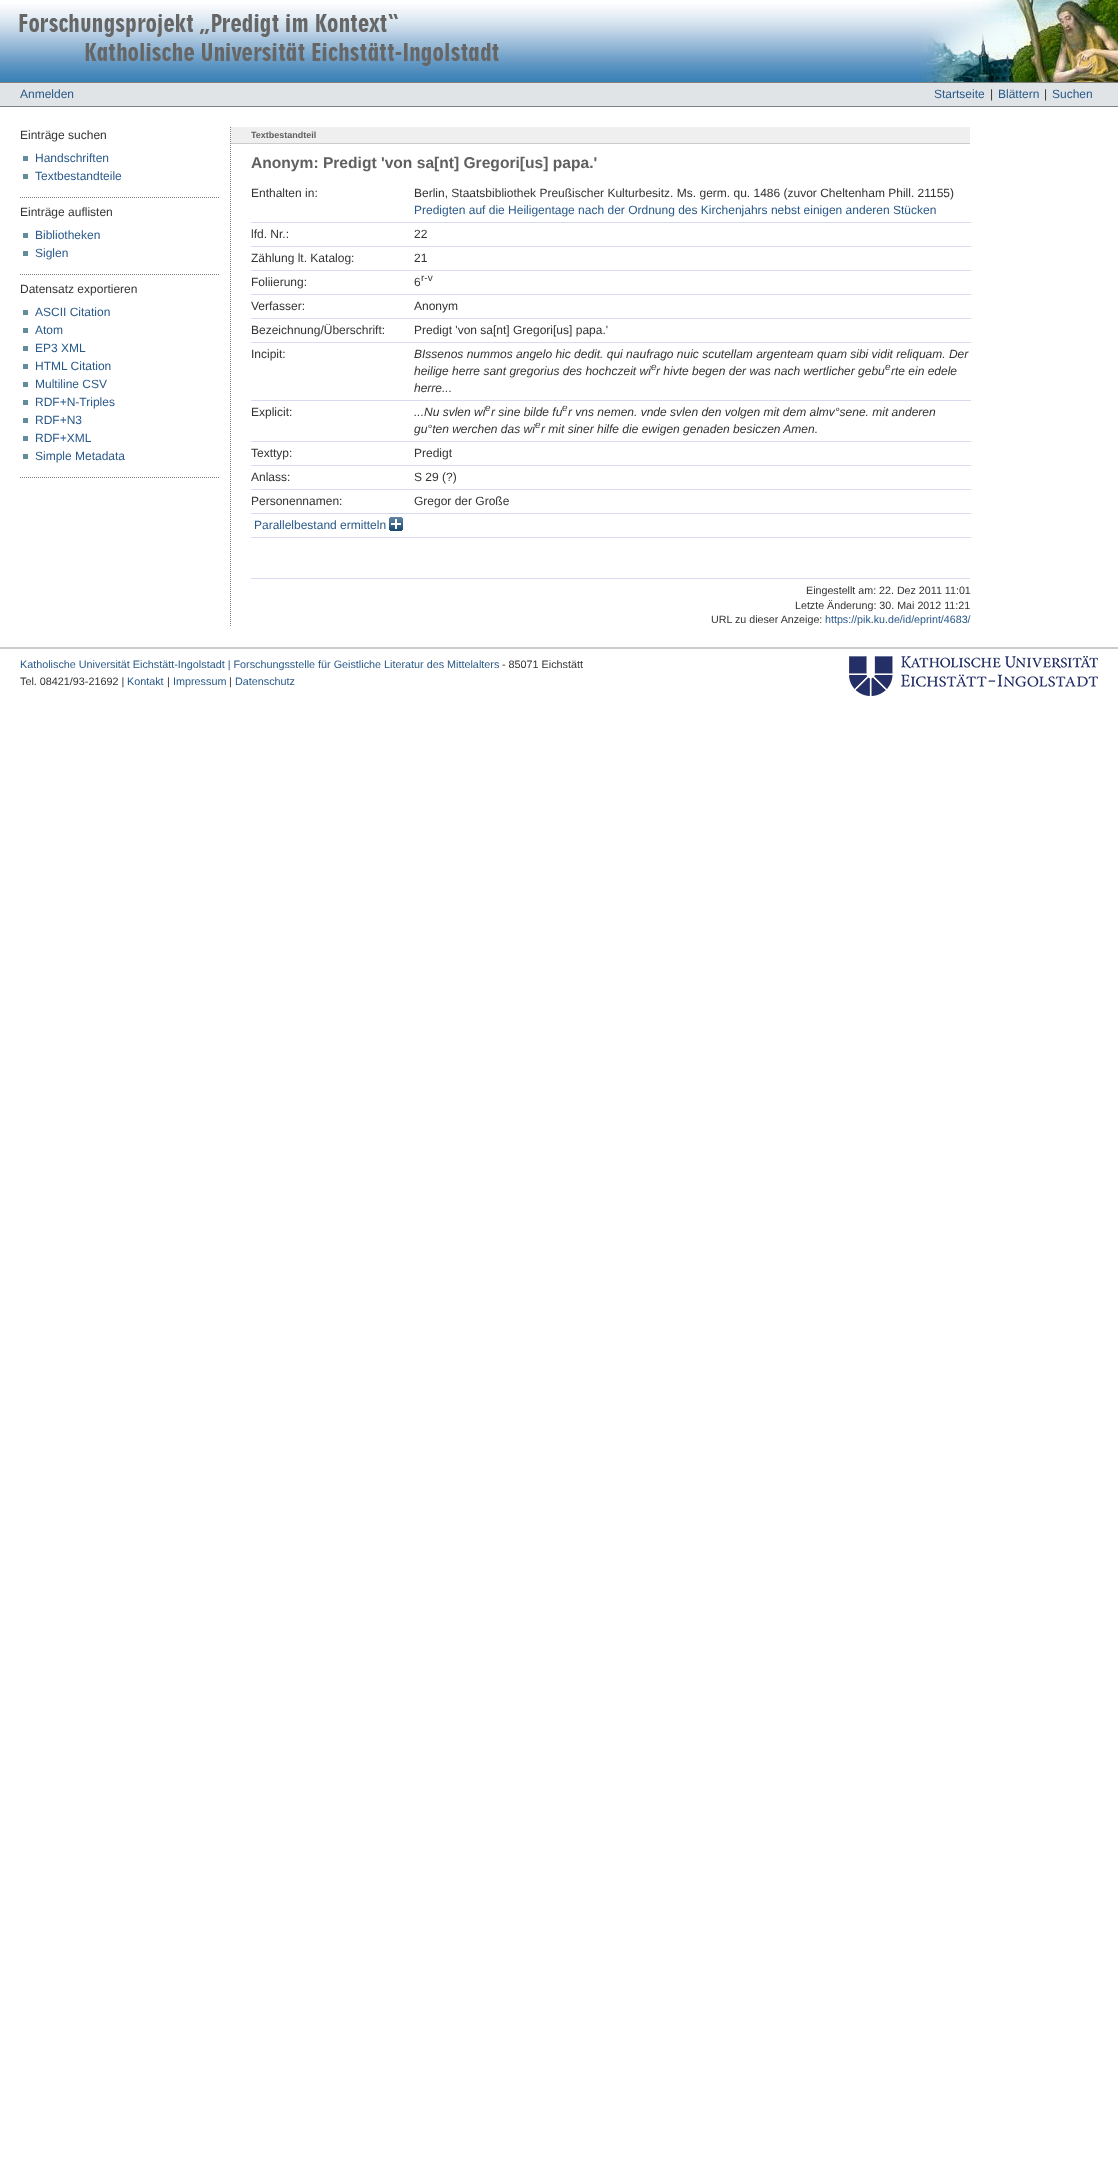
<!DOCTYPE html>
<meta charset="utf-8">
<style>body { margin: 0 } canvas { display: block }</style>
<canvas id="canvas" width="1118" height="2167"></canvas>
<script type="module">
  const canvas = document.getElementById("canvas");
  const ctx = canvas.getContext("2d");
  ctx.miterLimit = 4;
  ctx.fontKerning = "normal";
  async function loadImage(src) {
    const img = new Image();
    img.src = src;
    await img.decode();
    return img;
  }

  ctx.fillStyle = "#ffffff";
  ctx.fillRect(0, 0, 1118, 2167);
  ctx.drawImage(await loadImage("img1.png"), 0, 4, 919, 78);
  ctx.drawImage(await loadImage("img2.png"), 19, 9, 485, 63);
  ctx.drawImage(await loadImage("img3.png"), 919, 0, 199, 82);
  ctx.fillStyle = "#e0e4e7";
  ctx.fillRect(0, 83, 1118, 23);
  ctx.fillStyle = "#808080";
  ctx.fillRect(0, 82, 1118, 1);
  ctx.fillRect(0, 106, 1118, 1);
  ctx.font = "12px Liberation Sans";
  ctx.fillStyle = "#295989";
  ctx.fillText("Anmelden", 20, 98);
  ctx.fillText("Startseite", 934, 98);
  ctx.fillStyle = "#333333";
  ctx.fillText("|", 990, 98);
  ctx.fillStyle = "#295989";
  ctx.fillText("Blättern", 998, 98);
  ctx.fillStyle = "#333333";
  ctx.fillText("|", 1044, 98);
  ctx.fillStyle = "#295989";
  ctx.fillText("Suchen", 1052, 98);
  ctx.fillStyle = "#333333";
  ctx.fillText("Einträge suchen", 20, 139);
  ctx.fillStyle = "#638c9c";
  ctx.fillRect(23, 156, 5, 5);
  ctx.fillStyle = "#295989";
  ctx.fillText("Handschriften", 35, 162);
  ctx.fillStyle = "#638c9c";
  ctx.fillRect(23, 174, 5, 5);
  ctx.fillStyle = "#295989";
  ctx.fillText("Textbestandteile", 35, 180);
  ctx.beginPath();
  ctx.moveTo(20, 197.5);
  ctx.lineTo(220, 197.5);
  ctx.strokeStyle = "#808080";
  ctx.setLineDash([1, 1]);
  ctx.stroke();
  ctx.fillStyle = "#333333";
  ctx.fillText("Einträge auflisten", 20, 216);
  ctx.fillStyle = "#638c9c";
  ctx.fillRect(23, 233, 5, 5);
  ctx.fillStyle = "#295989";
  ctx.fillText("Bibliotheken", 35, 239);
  ctx.fillStyle = "#638c9c";
  ctx.fillRect(23, 251, 5, 5);
  ctx.fillStyle = "#295989";
  ctx.fillText("Siglen", 35, 257);
  ctx.beginPath();
  ctx.moveTo(20, 274.5);
  ctx.lineTo(220, 274.5);
  ctx.stroke();
  ctx.fillStyle = "#333333";
  ctx.fillText("Datensatz exportieren", 20, 293);
  ctx.fillStyle = "#638c9c";
  ctx.fillRect(23, 310, 5, 5);
  ctx.fillStyle = "#295989";
  ctx.fillText("ASCII Citation", 35, 316);
  ctx.fillStyle = "#638c9c";
  ctx.fillRect(23, 328, 5, 5);
  ctx.fillStyle = "#295989";
  ctx.fillText("Atom", 35, 334);
  ctx.fillStyle = "#638c9c";
  ctx.fillRect(23, 346, 5, 5);
  ctx.fillStyle = "#295989";
  ctx.fillText("EP3 XML", 35, 352);
  ctx.fillStyle = "#638c9c";
  ctx.fillRect(23, 364, 5, 5);
  ctx.fillStyle = "#295989";
  ctx.fillText("HTML Citation", 35, 370);
  ctx.fillStyle = "#638c9c";
  ctx.fillRect(23, 382, 5, 5);
  ctx.fillStyle = "#295989";
  ctx.fillText("Multiline CSV", 35, 388);
  ctx.fillStyle = "#638c9c";
  ctx.fillRect(23, 400, 5, 5);
  ctx.fillStyle = "#295989";
  ctx.fillText("RDF+N-Triples", 35, 406);
  ctx.fillStyle = "#638c9c";
  ctx.fillRect(23, 418, 5, 5);
  ctx.fillStyle = "#295989";
  ctx.fillText("RDF+N3", 35, 424);
  ctx.fillStyle = "#638c9c";
  ctx.fillRect(23, 436, 5, 5);
  ctx.fillStyle = "#295989";
  ctx.fillText("RDF+XML", 35, 442);
  ctx.fillStyle = "#638c9c";
  ctx.fillRect(23, 454, 5, 5);
  ctx.fillStyle = "#295989";
  ctx.fillText("Simple Metadata", 35, 460);
  ctx.beginPath();
  ctx.moveTo(20, 477.5);
  ctx.lineTo(220, 477.5);
  ctx.stroke();
  ctx.beginPath();
  ctx.moveTo(230.5, 127);
  ctx.lineTo(230.5, 627);
  ctx.stroke();
  ctx.fillStyle = "#efefef";
  ctx.fillRect(231, 127, 739, 16);
  ctx.fillStyle = "#cccccc";
  ctx.fillRect(231, 143, 739, 1);
  ctx.font = "bold 9px Liberation Sans";
  ctx.fillStyle = "#606060";
  ctx.fillText("Textbestandteil", 251, 138);
  ctx.font = "bold 15.6px Liberation Sans";
  ctx.fillText("Anonym: Predigt 'von sa[nt] Gregori[us] papa.'", 251, 168);
  ctx.font = "12px Liberation Sans";
  ctx.fillStyle = "#333333";
  ctx.fillText("Enthalten in:", 251, 197);
  ctx.fillStyle = "#d8dbef";
  ctx.fillRect(251, 222, 720, 1);
  ctx.fillStyle = "#333333";
  ctx.fillText("Berlin, Staatsbibliothek Preußischer Kulturbesitz. Ms. germ. qu. 1486 (zuvor Cheltenham Phill. 21155)", 414, 197);
  ctx.fillStyle = "#295989";
  ctx.fillText("Predigten auf die Heiligentage nach der Ordnung des Kirchenjahrs nebst einigen anderen Stücken", 414, 214);
  ctx.fillStyle = "#333333";
  ctx.fillText("lfd. Nr.:", 251, 238);
  ctx.fillStyle = "#d8dbef";
  ctx.fillRect(251, 246, 720, 1);
  ctx.fillStyle = "#333333";
  ctx.fillText("22", 414, 238);
  ctx.fillText("Zählung lt. Katalog:", 251, 262);
  ctx.fillStyle = "#d8dbef";
  ctx.fillRect(251, 270, 720, 1);
  ctx.fillStyle = "#333333";
  ctx.fillText("21", 414, 262);
  ctx.fillText("Foliierung:", 251, 286);
  ctx.fillStyle = "#d8dbef";
  ctx.fillRect(251, 294, 720, 1);
  ctx.fillStyle = "#333333";
  ctx.fillText("6", 414, 286);
  ctx.font = "10px Liberation Sans";
  ctx.fillText("r-v", 421, 281);
  ctx.font = "12px Liberation Sans";
  ctx.fillText("Verfasser:", 251, 310);
  ctx.fillStyle = "#d8dbef";
  ctx.fillRect(251, 318, 720, 1);
  ctx.fillStyle = "#333333";
  ctx.fillText("Anonym", 414, 310);
  ctx.fillText("Bezeichnung/Überschrift:", 251, 334);
  ctx.fillStyle = "#d8dbef";
  ctx.fillRect(251, 342, 720, 1);
  ctx.fillStyle = "#333333";
  ctx.fillText("Predigt 'von sa[nt] Gregori[us] papa.'", 414, 334);
  ctx.fillText("Incipit:", 251, 358);
  ctx.fillStyle = "#d8dbef";
  ctx.fillRect(251, 400, 720, 1);
  ctx.font = "italic 12px Liberation Sans";
  ctx.fillStyle = "#333333";
  ctx.fillText("BIssenos nummos angelo hic dedit. qui naufrago nuic scutellam argenteam quam sibi vidit reliquam. Der", 414, 358);
  ctx.fillText("heilige herre sant gregorius des hochczeit wi", 414, 375);
  ctx.font = "italic 10px Liberation Sans";
  ctx.fillText("e", 651, 370);
  ctx.font = "italic 12px Liberation Sans";
  ctx.fillText("r hivte begen der was nach wertlicher gebu", 656, 375);
  ctx.font = "italic 10px Liberation Sans";
  ctx.fillText("e", 885, 370);
  ctx.font = "italic 12px Liberation Sans";
  ctx.fillText("rte ein edele", 891, 375);
  ctx.fillText("herre...", 414, 392);
  ctx.font = "12px Liberation Sans";
  ctx.fillText("Explicit:", 251, 416);
  ctx.fillStyle = "#d8dbef";
  ctx.fillRect(251, 441, 720, 1);
  ctx.font = "italic 12px Liberation Sans";
  ctx.fillStyle = "#333333";
  ctx.fillText("...Nu svlen wi", 414, 416);
  ctx.font = "italic 10px Liberation Sans";
  ctx.fillText("e", 485, 411);
  ctx.font = "italic 12px Liberation Sans";
  ctx.fillText("r sine bilde fu", 491, 416);
  ctx.font = "italic 10px Liberation Sans";
  ctx.fillText("e", 562, 411);
  ctx.font = "italic 12px Liberation Sans";
  ctx.fillText("r vns nemen. vnde svlen den volgen mit dem almv°sene. mit anderen", 568, 416);
  ctx.fillText("gu°ten werchen das wi", 414, 433);
  ctx.font = "italic 10px Liberation Sans";
  ctx.fillText("e", 535, 428);
  ctx.font = "italic 12px Liberation Sans";
  ctx.fillText("r mit siner hilfe die ewigen genaden besiczen Amen.", 541, 433);
  ctx.font = "12px Liberation Sans";
  ctx.fillText("Texttyp:", 251, 457);
  ctx.fillStyle = "#d8dbef";
  ctx.fillRect(251, 465, 720, 1);
  ctx.fillStyle = "#333333";
  ctx.fillText("Predigt", 414, 457);
  ctx.fillText("Anlass:", 251, 481);
  ctx.fillStyle = "#d8dbef";
  ctx.fillRect(251, 489, 720, 1);
  ctx.fillStyle = "#333333";
  ctx.fillText("S 29 (?)", 414, 481);
  ctx.fillText("Personennamen:", 251, 505);
  ctx.fillStyle = "#d8dbef";
  ctx.fillRect(251, 513, 720, 1);
  ctx.fillStyle = "#333333";
  ctx.fillText("Gregor der Große", 414, 505);
  ctx.fillStyle = "#d8dbef";
  ctx.fillRect(251, 537, 720, 1);
  ctx.fillStyle = "#295989";
  ctx.fillText("Parallelbestand ermitteln", 254, 529);
  ctx.drawImage(await loadImage("img4.png"), 389, 517, 14, 14);
  ctx.fillStyle = "#d8dbef";
  ctx.fillRect(251, 578, 719, 1);
  ctx.font = "10.7px Liberation Sans";
  ctx.fillStyle = "#333333";
  ctx.fillText("Eingestellt am: 22. Dez 2011 11:01", 806, 594);
  ctx.fillText("Letzte Änderung: 30. Mai 2012 11:21", 795, 609);
  ctx.fillText("URL zu dieser Anzeige:", 711, 623);
  ctx.fillStyle = "#295989";
  ctx.fillText("https://pik.ku.de/id/eprint/4683/", 825, 623);
  ctx.fillStyle = "#cccccc";
  ctx.fillRect(0, 647, 1118, 2);
  ctx.font = "10.8px Liberation Sans";
  ctx.fillStyle = "#295989";
  ctx.fillText("Katholische Universität Eichstätt-Ingolstadt | Forschungsstelle für Geistliche Literatur des Mittelalters", 20, 668);
  ctx.fillStyle = "#333333";
  ctx.fillText("- 85071 Eichstätt", 502, 668);
  ctx.fillText("Tel. 08421/93-21692 |", 20, 685);
  ctx.fillStyle = "#295989";
  ctx.fillText("Kontakt", 127, 685);
  ctx.fillStyle = "#333333";
  ctx.fillText("|", 167, 685);
  ctx.fillStyle = "#295989";
  ctx.fillText("Impressum", 173, 685);
  ctx.fillStyle = "#333333";
  ctx.fillText("|", 229, 685);
  ctx.fillStyle = "#295989";
  ctx.fillText("Datenschutz", 235, 685);
  ctx.drawImage(await loadImage("img5.png"), 849, 656, 249, 40);
</script>
